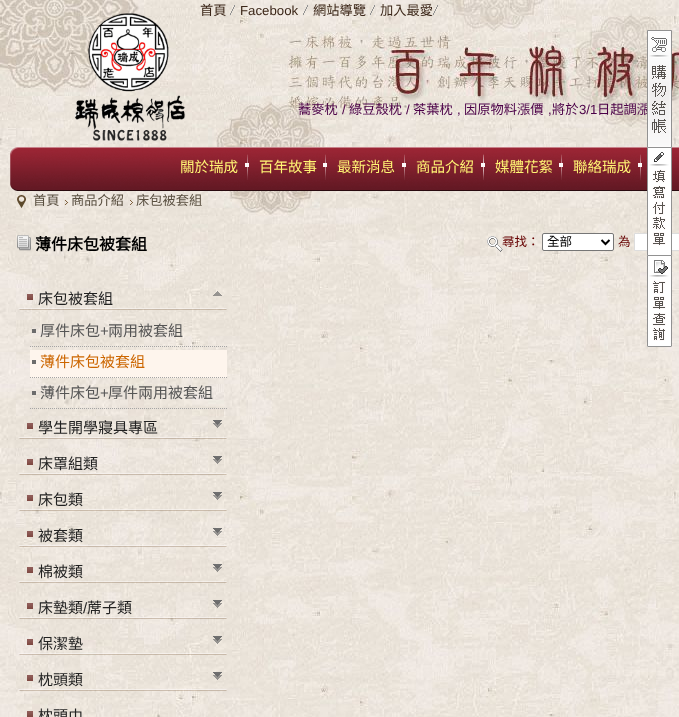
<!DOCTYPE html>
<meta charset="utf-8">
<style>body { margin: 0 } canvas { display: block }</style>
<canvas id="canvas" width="679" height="717"></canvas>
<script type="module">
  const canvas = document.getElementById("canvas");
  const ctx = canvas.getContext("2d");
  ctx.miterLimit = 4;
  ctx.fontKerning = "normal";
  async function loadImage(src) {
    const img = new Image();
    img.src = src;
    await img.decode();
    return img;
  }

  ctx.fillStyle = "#ffffff";
  ctx.fillRect(0, 0, 679, 717);
  ctx.drawImage(await loadImage("img1.png"), 0, 216, 679, 501);
  ctx.drawImage(await loadImage("img6.png"), 0, 0, 679, 216);
  ctx.font = "13.25px Noto Sans CJK TC";
  ctx.fillStyle = "#3c2719";
  ctx.fillText("首頁", 200, 15);
  ctx.drawImage(await loadImage("img2.png"), 230, 5, 5, 10);
  ctx.font = "13.25px Liberation Sans";
  ctx.fillText("Facebook", 240, 15);
  ctx.drawImage(await loadImage("img3.png"), 303, 5, 5, 10);
  ctx.font = "13.25px Noto Sans CJK TC";
  ctx.fillText("網站導覽", 313, 15);
  ctx.drawImage(await loadImage("img4.png"), 370, 5, 5, 10);
  ctx.fillText("加入最愛", 380, 15);
  ctx.drawImage(await loadImage("img5.png"), 433, 5, 5, 10);
  ctx.drawImage(await loadImage("img8.png"), 11, 32, 668, 115);
  ctx.fillStyle = "#4b0048";
  ctx.fillText("蕎麥枕", 298, 114);
  ctx.font = "13.25px Liberation Sans";
  ctx.fillText("/", 342, 114);
  ctx.font = "13.25px Noto Sans CJK TC";
  ctx.fillText("綠豆殼枕", 349, 114);
  ctx.font = "13.25px Liberation Sans";
  ctx.fillText("/", 406, 114);
  ctx.font = "13.25px Noto Sans CJK TC";
  ctx.fillText("茶葉枕", 413, 114);
  ctx.font = "13.25px Liberation Sans";
  ctx.fillText(",", 457, 114);
  ctx.font = "13.25px Noto Sans CJK TC";
  ctx.fillText("因原物料漲價", 464, 114);
  ctx.font = "13.25px Liberation Sans";
  ctx.fillText(",", 548, 114);
  ctx.font = "13.25px Noto Sans CJK TC";
  ctx.fillText("將於", 552, 114);
  ctx.font = "13.25px Liberation Sans";
  ctx.fillText("3/1", 579, 114);
  ctx.font = "13.25px Noto Sans CJK TC";
  ctx.fillText("日起調漲", 597, 114);
  ctx.drawImage(await loadImage("img7.png"), 75, 13, 111, 128);
  ctx.drawImage(await loadImage("img9.png"), 10, 147, 669, 44);
  ctx.drawImage(await loadImage("img10.png"), 245, 154, 4, 26);
  ctx.font = "14.5px Noto Sans CJK TC";
  ctx.fillStyle = "#fff474";
  ctx.fillText("關於瑞成", 180, 172);
  ctx.drawImage(await loadImage("img11.png"), 323, 154, 4, 26);
  ctx.fillText("百年故事", 259, 172);
  ctx.drawImage(await loadImage("img12.png"), 402, 154, 4, 26);
  ctx.fillText("最新消息", 337, 172);
  ctx.drawImage(await loadImage("img13.png"), 481, 154, 4, 26);
  ctx.fillText("商品介紹", 416, 172);
  ctx.drawImage(await loadImage("img14.png"), 483, 154, 1, 26);
  ctx.drawImage(await loadImage("img15.png"), 559, 154, 4, 26);
  ctx.fillText("媒體花絮", 495, 172);
  ctx.drawImage(await loadImage("img16.png"), 638, 154, 4, 26);
  ctx.fillText("聯絡瑞成", 573, 172);
  ctx.drawImage(await loadImage("img17.png"), 17, 195, 9, 14);
  ctx.font = "13.25px Noto Sans CJK TC";
  ctx.fillStyle = "#594f40";
  ctx.fillText("首頁", 33, 205);
  ctx.drawImage(await loadImage("img18.png"), 65, 200, 4, 5);
  ctx.fillText("商品介紹", 71, 205);
  ctx.drawImage(await loadImage("img19.png"), 130, 200, 4, 5);
  ctx.fillText("床包被套組", 136, 205);
  ctx.drawImage(await loadImage("img20.png"), 17, 235, 14, 16);
  ctx.font = "bold 16px Noto Sans CJK TC";
  ctx.fillStyle = "#000000";
  ctx.fillText("薄件床包被套組", 35, 250);
  ctx.drawImage(await loadImage("img21.png"), 487, 236, 16, 16);
  ctx.font = "12.5px Noto Sans CJK TC";
  ctx.fillStyle = "#660000";
  ctx.fillText("尋找：", 502, 246);
  ctx.fillStyle = "#ffffff";
  ctx.beginPath();
  ctx.roundRect(542.5, 233.5, 71, 17, 1.5);
  ctx.fill();
  ctx.strokeStyle = "#767676";
  ctx.stroke();
  ctx.beginPath();
  ctx.moveTo(601.5, 240);
  ctx.lineTo(605.5, 244);
  ctx.lineTo(609.5, 240);
  ctx.strokeStyle = "#000000";
  ctx.lineWidth = 2;
  ctx.stroke();
  ctx.fillStyle = "#000000";
  ctx.fillText("全部", 547, 246);
  ctx.fillStyle = "#660000";
  ctx.fillText("為", 618, 246);
  ctx.fillStyle = "#ffffff";
  ctx.beginPath();
  ctx.rect(634.5, 233.5, 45, 17);
  ctx.fill();
  ctx.strokeStyle = "#dddddd";
  ctx.lineWidth = 1;
  ctx.stroke();
  ctx.drawImage(await loadImage("img22.png"), 18, 294, 209, 16);
  ctx.font = "15px Noto Sans CJK TC";
  ctx.fillStyle = "#222222";
  ctx.fillText("床包被套組", 38, 304);
  ctx.drawImage(await loadImage("img23.png"), 213, 291, 9, 5);
  ctx.fillStyle = "#6c6c6c";
  ctx.fillRect(32, 329, 4, 4);
  ctx.beginPath();
  ctx.moveTo(30, 346.5);
  ctx.lineTo(227, 346.5);
  ctx.strokeStyle = "#a5a5a5";
  ctx.setLineDash([1, 1]);
  ctx.stroke();
  ctx.fillStyle = "#555555";
  ctx.fillText("厚件床包", 40, 336);
  ctx.font = "15px Liberation Sans";
  ctx.fillText("+", 100, 336);
  ctx.font = "15px Noto Sans CJK TC";
  ctx.fillText("兩用被套組", 108, 336);
  ctx.fillStyle = "#fef5ed";
  ctx.fillRect(30, 350, 197, 28);
  ctx.fillStyle = "#6c6c6c";
  ctx.fillRect(32, 360, 4, 4);
  ctx.beginPath();
  ctx.moveTo(30, 377.5);
  ctx.lineTo(227, 377.5);
  ctx.stroke();
  ctx.fillStyle = "#cc6600";
  ctx.fillText("薄件床包被套組", 40, 367);
  ctx.fillStyle = "#6c6c6c";
  ctx.fillRect(32, 391, 4, 4);
  ctx.beginPath();
  ctx.moveTo(30, 408.5);
  ctx.lineTo(227, 408.5);
  ctx.stroke();
  ctx.fillStyle = "#555555";
  ctx.fillText("薄件床包", 40, 398);
  ctx.font = "15px Liberation Sans";
  ctx.fillText("+", 100, 398);
  ctx.font = "15px Noto Sans CJK TC";
  ctx.fillText("厚件兩用被套組", 108, 398);
  ctx.drawImage(await loadImage("img24.png"), 18, 423, 209, 16);
  ctx.fillStyle = "#222222";
  ctx.fillText("學生開學寢具專區", 38, 433);
  ctx.drawImage(await loadImage("img25.png"), 213, 420, 9, 8);
  ctx.drawImage(await loadImage("img26.png"), 18, 459, 209, 16);
  ctx.fillText("床罩組類", 38, 469);
  ctx.drawImage(await loadImage("img27.png"), 213, 456, 9, 8);
  ctx.drawImage(await loadImage("img28.png"), 18, 495, 209, 16);
  ctx.fillText("床包類", 38, 505);
  ctx.drawImage(await loadImage("img29.png"), 213, 492, 9, 8);
  ctx.drawImage(await loadImage("img30.png"), 18, 531, 209, 16);
  ctx.fillText("被套類", 38, 541);
  ctx.drawImage(await loadImage("img31.png"), 213, 528, 9, 8);
  ctx.drawImage(await loadImage("img32.png"), 18, 567, 209, 16);
  ctx.fillText("棉被類", 38, 577);
  ctx.drawImage(await loadImage("img33.png"), 213, 564, 9, 8);
  ctx.drawImage(await loadImage("img34.png"), 18, 603, 209, 16);
  ctx.fillText("床墊類", 38, 613);
  ctx.font = "15px Liberation Sans";
  ctx.fillText("/", 83, 613);
  ctx.font = "15px Noto Sans CJK TC";
  ctx.fillText("蓆子類", 87, 613);
  ctx.drawImage(await loadImage("img35.png"), 213, 600, 9, 8);
  ctx.drawImage(await loadImage("img36.png"), 18, 639, 209, 16);
  ctx.fillText("保潔墊", 38, 649);
  ctx.drawImage(await loadImage("img37.png"), 213, 636, 9, 8);
  ctx.drawImage(await loadImage("img38.png"), 18, 675, 209, 16);
  ctx.fillText("枕頭類", 38, 685);
  ctx.drawImage(await loadImage("img39.png"), 213, 672, 9, 8);
  ctx.drawImage(await loadImage("img40.png"), 27, 711, 6, 6);
  ctx.fillText("枕頭巾", 38, 721);
  ctx.drawImage(await loadImage("img41.png"), 647, 30, 25, 117);
  ctx.drawImage(await loadImage("img42.png"), 647, 147, 25, 109);
  ctx.drawImage(await loadImage("img43.png"), 647, 256, 25, 91);
</script>
